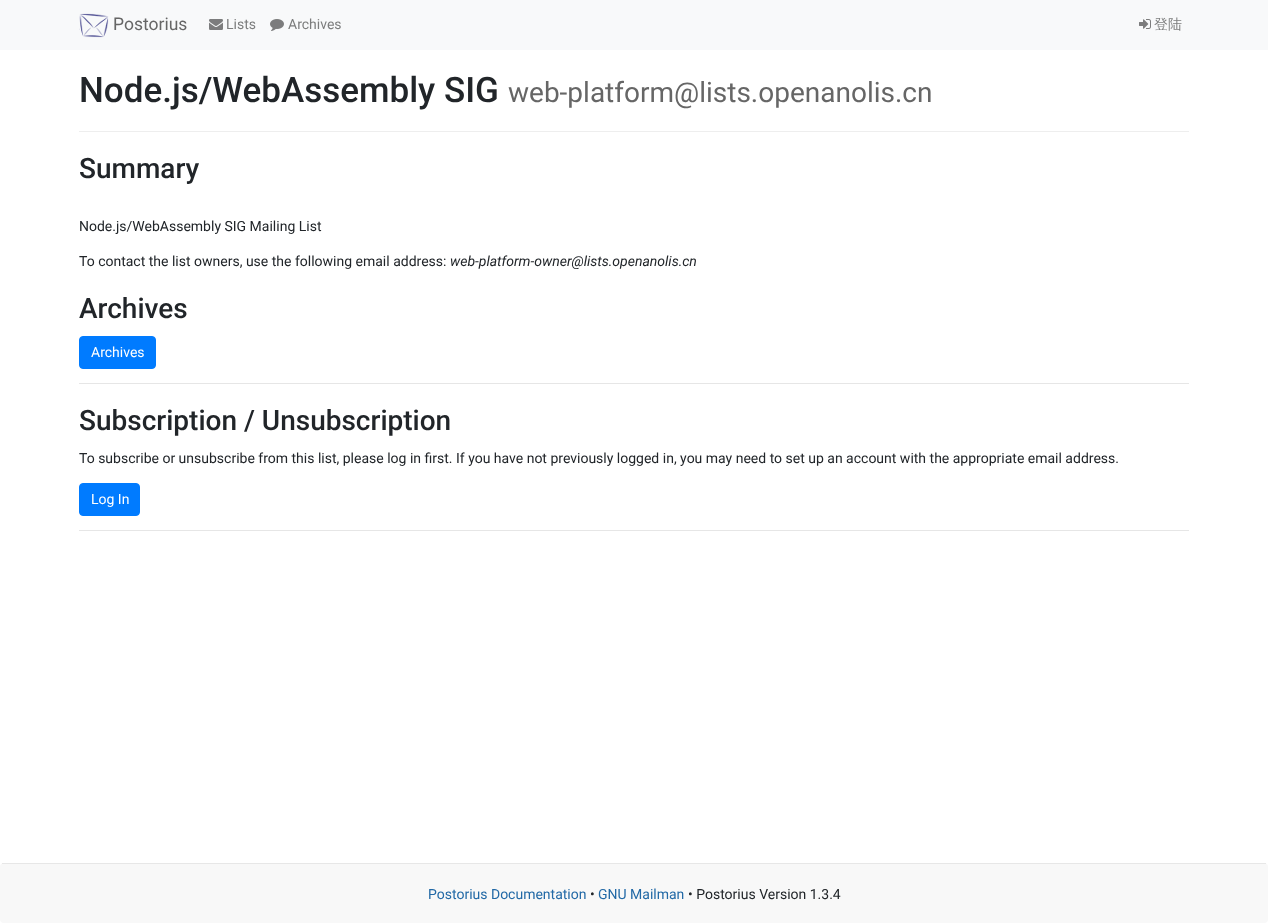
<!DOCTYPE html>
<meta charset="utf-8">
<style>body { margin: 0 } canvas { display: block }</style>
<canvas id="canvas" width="1268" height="923"></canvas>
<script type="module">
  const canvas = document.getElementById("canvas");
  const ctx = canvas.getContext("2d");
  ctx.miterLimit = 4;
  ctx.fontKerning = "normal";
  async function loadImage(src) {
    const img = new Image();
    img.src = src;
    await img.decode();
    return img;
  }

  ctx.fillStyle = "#ffffff";
  ctx.fillRect(0, 0, 1268, 923);
  ctx.fillStyle = "#f8f9fa";
  ctx.fillRect(0, 0, 1268, 50);
  ctx.drawImage(await loadImage("img1.png"), 79, 13, 30, 25);
  ctx.font = "17.5px Roboto";
  ctx.fillStyle = "#666666";
  ctx.fillText("Postorius", 113, 30);
  ctx.drawImage(await loadImage("img2.png"), 209, 19, 14, 11);
  ctx.font = "14px Roboto";
  ctx.fillStyle = "#7c7d7d";
  ctx.fillText("Lists", 226, 29);
  ctx.drawImage(await loadImage("img3.png"), 270, 19, 14, 12);
  ctx.fillText("Archives", 288, 29);
  ctx.drawImage(await loadImage("img4.png"), 1139, 19, 12, 10);
  ctx.font = "500 14px WenQuanYi Zen Hei";
  ctx.fillText("登陆", 1154, 29);
  ctx.fillStyle = "#eeeeee";
  ctx.fillRect(79, 131, 1110, 1);
  ctx.font = "500 35px Roboto";
  ctx.fillStyle = "#212529";
  ctx.fillText("Node.js/WebAssembly SIG", 79, 102);
  ctx.font = "28px Roboto";
  ctx.fillStyle = "#666666";
  ctx.fillText("web-platform@lists.openanolis.cn", 508, 102);
  ctx.font = "500 28px Roboto";
  ctx.fillStyle = "#212529";
  ctx.fillText("Summary", 79, 178);
  ctx.font = "14px Roboto";
  ctx.fillText("Node.js/WebAssembly SIG Mailing List", 79, 231);
  ctx.fillText("To contact the list owners, use the following email address:", 79, 266);
  ctx.font = "italic 14px Roboto";
  ctx.fillText("web-platform-owner@lists.openanolis.cn", 450, 266);
  ctx.font = "500 28px Roboto";
  ctx.fillText("Archives", 79, 318);
  ctx.fillStyle = "#007bff";
  ctx.beginPath();
  ctx.roundRect(79.5, 336.5, 76, 32, 3.5);
  ctx.fill();
  ctx.strokeStyle = "#007bff";
  ctx.stroke();
  ctx.font = "14px Roboto";
  ctx.fillStyle = "#ffffff";
  ctx.fillText("Archives", 91, 357);
  ctx.fillStyle = "#e6e6e6";
  ctx.fillRect(79, 383, 1110, 1);
  ctx.font = "500 28px Roboto";
  ctx.fillStyle = "#212529";
  ctx.fillText("Subscription / Unsubscription", 79, 430);
  ctx.font = "14px Roboto";
  ctx.fillText("To subscribe or unsubscribe from this list, please log in first. If you have not previously logged in, you may need to set up an account with the appropriate email address.", 79, 463);
  ctx.fillStyle = "#007bff";
  ctx.beginPath();
  ctx.roundRect(79.5, 483.5, 60, 32, 3.5);
  ctx.fill();
  ctx.stroke();
  ctx.fillStyle = "#ffffff";
  ctx.fillText("Log In", 91, 504);
  ctx.fillStyle = "#e6e6e6";
  ctx.fillRect(79, 530, 1110, 1);
  ctx.fillStyle = "#f8f8f8";
  ctx.beginPath();
  ctx.roundRect(0, 863, 1268, 60, 4);
  ctx.fill();
  ctx.fillStyle = "#e7e7e7";
  ctx.fillRect(2, 863, 1264, 1);
  ctx.fillStyle = "#2269a6";
  ctx.fillText("Postorius Documentation", 428, 899);
  ctx.fillStyle = "#212529";
  ctx.fillText("•", 590, 899);
  ctx.fillStyle = "#2269a6";
  ctx.fillText("GNU Mailman", 598, 899);
  ctx.fillStyle = "#212529";
  ctx.fillText("• Postorius Version 1.3.4", 688, 899);
</script>
